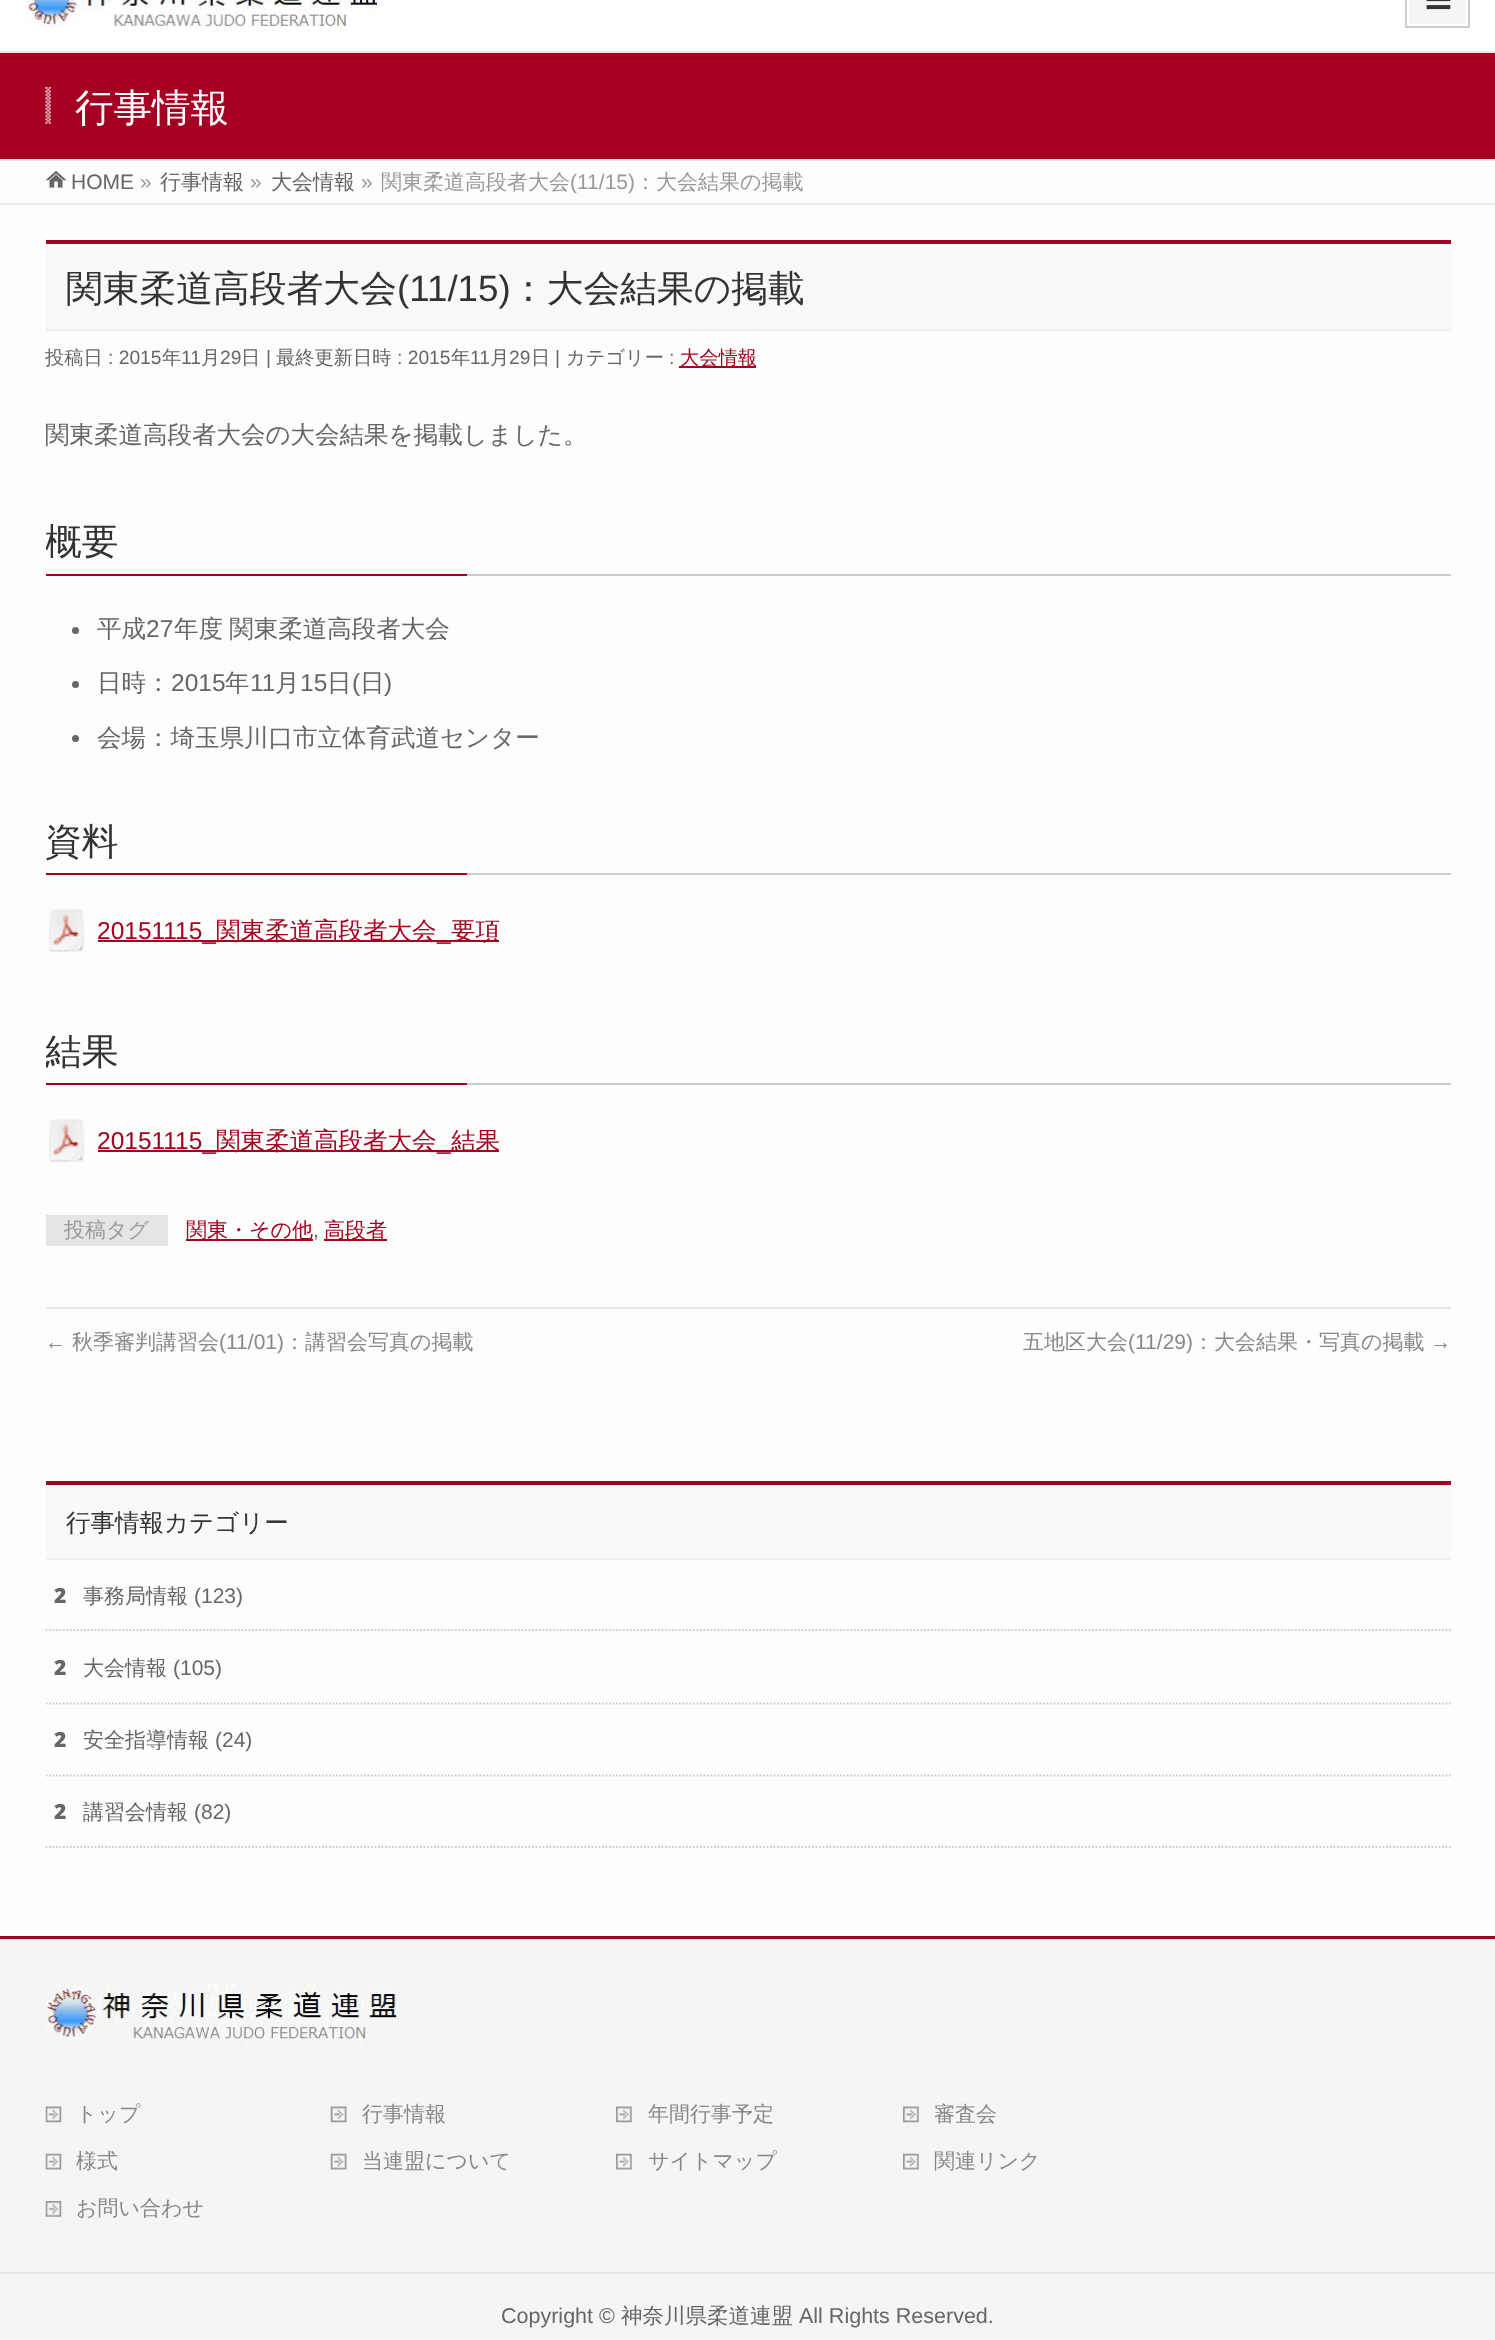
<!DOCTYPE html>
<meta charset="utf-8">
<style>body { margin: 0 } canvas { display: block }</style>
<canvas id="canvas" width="1495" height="2340"></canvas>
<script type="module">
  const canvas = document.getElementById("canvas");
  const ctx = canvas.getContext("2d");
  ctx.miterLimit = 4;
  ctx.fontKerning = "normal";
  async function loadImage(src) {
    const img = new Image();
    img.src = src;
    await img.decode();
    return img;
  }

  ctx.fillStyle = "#fdfdfb";
  ctx.fillRect(0, 0, 1495, 2340);
  ctx.fillStyle = "#ffffff";
  ctx.fillRect(0, 0, 1495, 51);
  ctx.drawImage(await loadImage("img1.png"), 26, 0, 353, 33);
  ctx.fillStyle = "#f5f5f5";
  ctx.fillRect(1409, 0, 57, 24);
  ctx.strokeStyle = "#cccccc";
  ctx.lineWidth = 2;
  ctx.strokeRect(1406, -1, 63, 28);
  ctx.drawImage(await loadImage("img2.png"), 1426, 0, 25, 10);
  ctx.fillStyle = "#a50021";
  ctx.fillRect(0, 53, 1495, 106);
  ctx.fillStyle = "#e9e9e9";
  ctx.fillRect(0, 51, 1495, 2);
  ctx.fillRect(0, 159, 1495, 2);
  ctx.drawImage(await loadImage("img3.png"), 45, 87, 6, 37);
  ctx.font = "500 38.5px WenQuanYi Zen Hei";
  ctx.fillStyle = "#ffffff";
  ctx.fillText("行事情報", 75, 121);
  ctx.drawImage(await loadImage("img4.png"), 46, 170, 21, 18);
  ctx.font = "21px Liberation Sans";
  ctx.fillStyle = "#666666";
  ctx.fillText("HOME", 71, 189);
  ctx.fillStyle = "#999999";
  ctx.fillText("»", 140, 189);
  ctx.font = "500 21px WenQuanYi Zen Hei";
  ctx.fillStyle = "#666666";
  ctx.fillText("行事情報", 160, 189);
  ctx.font = "21px Liberation Sans";
  ctx.fillStyle = "#999999";
  ctx.fillText("»", 250, 189);
  ctx.font = "500 21px WenQuanYi Zen Hei";
  ctx.fillStyle = "#666666";
  ctx.fillText("大会情報", 271, 189);
  ctx.font = "21px Liberation Sans";
  ctx.fillStyle = "#999999";
  ctx.fillText("»", 361, 189);
  ctx.font = "500 21px WenQuanYi Zen Hei";
  ctx.fillText("関東柔道高段者大会", 381, 189);
  ctx.font = "21px Liberation Sans";
  ctx.fillText("(11/15)", 570, 189);
  ctx.font = "500 21px WenQuanYi Zen Hei";
  ctx.fillText("：大会結果の掲載", 635, 189);
  ctx.fillStyle = "#e9e9e9";
  ctx.fillRect(0, 203, 1495, 2);
  ctx.fillStyle = "#f9f9f9";
  ctx.fillRect(46, 244, 1405, 85);
  ctx.fillStyle = "#a50021";
  ctx.fillRect(46, 240, 1405, 4);
  ctx.fillStyle = "#efefef";
  ctx.fillRect(46, 329, 1405, 2);
  ctx.font = "500 36.75px WenQuanYi Zen Hei";
  ctx.fillStyle = "#333333";
  ctx.fillText("関東柔道高段者大会", 66, 301);
  ctx.font = "36.75px Liberation Sans";
  ctx.fillText("(11/15)", 397, 301);
  ctx.font = "500 36.75px WenQuanYi Zen Hei";
  ctx.fillText("：大会結果の掲載", 510, 301);
  ctx.font = "500 19.25px WenQuanYi Zen Hei";
  ctx.fillStyle = "#666666";
  ctx.fillText("投稿日", 45, 364);
  ctx.font = "19.25px Liberation Sans";
  ctx.fillText(": 2015", 108, 364);
  ctx.font = "500 19.25px WenQuanYi Zen Hei";
  ctx.fillText("年", 162, 364);
  ctx.font = "19.25px Liberation Sans";
  ctx.fillText("11", 181, 364);
  ctx.font = "500 19.25px WenQuanYi Zen Hei";
  ctx.fillText("月", 201, 364);
  ctx.font = "19.25px Liberation Sans";
  ctx.fillText("29", 220, 364);
  ctx.font = "500 19.25px WenQuanYi Zen Hei";
  ctx.fillText("日", 241, 364);
  ctx.font = "19.25px Liberation Sans";
  ctx.fillText("|", 266, 364);
  ctx.font = "500 19.25px WenQuanYi Zen Hei";
  ctx.fillText("最終更新日時", 276, 364);
  ctx.font = "19.25px Liberation Sans";
  ctx.fillText(": 2015", 397, 364);
  ctx.font = "500 19.25px WenQuanYi Zen Hei";
  ctx.fillText("年", 451, 364);
  ctx.font = "19.25px Liberation Sans";
  ctx.fillText("11", 470, 364);
  ctx.font = "500 19.25px WenQuanYi Zen Hei";
  ctx.fillText("月", 490, 364);
  ctx.font = "19.25px Liberation Sans";
  ctx.fillText("29", 509, 364);
  ctx.font = "500 19.25px WenQuanYi Zen Hei";
  ctx.fillText("日", 531, 364);
  ctx.font = "19.25px Liberation Sans";
  ctx.fillText("|", 555, 364);
  ctx.font = "500 19.25px WenQuanYi Zen Hei";
  ctx.fillText("カテゴリー", 566, 364);
  ctx.font = "19.25px Liberation Sans";
  ctx.fillText(":", 669, 364);
  ctx.fillStyle = "#a50021";
  ctx.fillRect(679, 366, 77, 2);
  ctx.font = "500 19.25px WenQuanYi Zen Hei";
  ctx.fillText("大会情報", 680, 364);
  ctx.save();
  ctx.beginPath();
  ctx.rect(46, 415, 1405, 849);
  ctx.clip();
  ctx.font = "500 24.5px WenQuanYi Zen Hei";
  ctx.fillStyle = "#666666";
  ctx.fillText("関東柔道高段者大会の大会結果を掲載しました。", 45, 443);
  ctx.restore();
  ctx.fillStyle = "#cccccc";
  ctx.fillRect(467, 574, 984, 2);
  ctx.save();
  ctx.beginPath();
  ctx.rect(46, 415, 1405, 849);
  ctx.clip();
  ctx.font = "500 36.75px WenQuanYi Zen Hei";
  ctx.fillStyle = "#333333";
  ctx.fillText("概要", 45, 554);
  ctx.restore();
  ctx.fillStyle = "#a50021";
  ctx.fillRect(46, 574, 421, 2);
  ctx.fillStyle = "#666666";
  ctx.beginPath();
  ctx.arc(75.5, 630.5, 3.5, 0, Math.PI * 2);
  ctx.fill();
  ctx.font = "500 24.5px WenQuanYi Zen Hei";
  ctx.fillText("平成", 97, 637);
  ctx.font = "24.5px Liberation Sans";
  ctx.fillText("27", 146, 637);
  ctx.wordSpacing = "-1px";
  ctx.font = "500 24.5px WenQuanYi Zen Hei";
  ctx.fillText("年度 関東柔道高段者大会", 174, 637);
  ctx.beginPath();
  ctx.arc(75.5, 684.5, 3.5, 0, Math.PI * 2);
  ctx.fill();
  ctx.wordSpacing = "0px";
  ctx.fillText("日時：", 97, 691);
  ctx.font = "24.5px Liberation Sans";
  ctx.fillText("2015", 171, 691);
  ctx.font = "500 24.5px WenQuanYi Zen Hei";
  ctx.fillText("年", 225, 691);
  ctx.font = "24.5px Liberation Sans";
  ctx.fillText("11", 250, 691);
  ctx.font = "500 24.5px WenQuanYi Zen Hei";
  ctx.fillText("月", 275, 691);
  ctx.font = "24.5px Liberation Sans";
  ctx.fillText("15", 300, 691);
  ctx.font = "500 24.5px WenQuanYi Zen Hei";
  ctx.fillText("日", 327, 691);
  ctx.font = "24.5px Liberation Sans";
  ctx.fillText("(", 352, 691);
  ctx.font = "500 24.5px WenQuanYi Zen Hei";
  ctx.fillText("日", 360, 691);
  ctx.font = "24.5px Liberation Sans";
  ctx.fillText(")", 384, 691);
  ctx.beginPath();
  ctx.arc(75.5, 738.5, 3.5, 0, Math.PI * 2);
  ctx.fill();
  ctx.font = "500 24.5px WenQuanYi Zen Hei";
  ctx.fillText("会場：埼玉県川口市立体育武道センター", 97, 746);
  ctx.fillStyle = "#cccccc";
  ctx.fillRect(467, 873, 984, 2);
  ctx.font = "500 36.75px WenQuanYi Zen Hei";
  ctx.fillStyle = "#333333";
  ctx.fillText("資料", 45, 854);
  ctx.fillStyle = "#a50021";
  ctx.fillRect(46, 873, 421, 2);
  ctx.drawImage(await loadImage("img5.png"), 49, 909, 36, 43);
  ctx.fillRect(98, 940, 401, 2);
  ctx.font = "24.5px Liberation Sans";
  ctx.fillText("20151115_", 97, 939);
  ctx.font = "500 24.5px WenQuanYi Zen Hei";
  ctx.fillText("関東柔道高段者大会", 216, 939);
  ctx.font = "24.5px Liberation Sans";
  ctx.fillText("_", 437, 939);
  ctx.font = "500 24.5px WenQuanYi Zen Hei";
  ctx.fillText("要項", 451, 939);
  ctx.fillStyle = "#cccccc";
  ctx.fillRect(467, 1083, 984, 2);
  ctx.save();
  ctx.beginPath();
  ctx.rect(46, 415, 1405, 849);
  ctx.clip();
  ctx.font = "500 36.75px WenQuanYi Zen Hei";
  ctx.fillStyle = "#333333";
  ctx.fillText("結果", 45, 1064);
  ctx.restore();
  ctx.fillStyle = "#a50021";
  ctx.fillRect(46, 1083, 421, 2);
  ctx.drawImage(await loadImage("img5.png"), 49, 1119, 36, 43);
  ctx.fillRect(98, 1150, 401, 2);
  ctx.font = "24.5px Liberation Sans";
  ctx.fillText("20151115_", 97, 1149);
  ctx.font = "500 24.5px WenQuanYi Zen Hei";
  ctx.fillText("関東柔道高段者大会", 216, 1149);
  ctx.font = "24.5px Liberation Sans";
  ctx.fillText("_", 437, 1149);
  ctx.font = "500 24.5px WenQuanYi Zen Hei";
  ctx.fillText("結果", 451, 1149);
  ctx.fillStyle = "#e5e5e5";
  ctx.fillRect(46, 1215, 122, 31);
  ctx.font = "500 21px WenQuanYi Zen Hei";
  ctx.fillStyle = "#999999";
  ctx.fillText("投稿タグ", 64, 1237);
  ctx.fillStyle = "#a50021";
  ctx.fillRect(186, 1239, 127, 2);
  ctx.fillText("関東・その他", 186, 1237);
  ctx.font = "21px Liberation Sans";
  ctx.fillStyle = "#666666";
  ctx.fillText(",", 313, 1237);
  ctx.fillStyle = "#a50021";
  ctx.fillRect(324, 1239, 63, 2);
  ctx.font = "500 21px WenQuanYi Zen Hei";
  ctx.fillText("高段者", 324, 1237);
  ctx.fillStyle = "#e5e5e5";
  ctx.fillRect(46, 1307, 1405, 2);
  ctx.font = "21px Liberation Sans";
  ctx.fillStyle = "#888888";
  ctx.fillText("←", 45, 1349);
  ctx.font = "500 21px WenQuanYi Zen Hei";
  ctx.fillText("秋季審判講習会", 72, 1349);
  ctx.font = "21px Liberation Sans";
  ctx.fillText("(11/01)", 219, 1349);
  ctx.font = "500 21px WenQuanYi Zen Hei";
  ctx.fillText("：講習会写真の掲載", 284, 1349);
  ctx.fillText("五地区大会", 1023, 1349);
  ctx.font = "21px Liberation Sans";
  ctx.fillText("(11/29)", 1128, 1349);
  ctx.font = "500 21px WenQuanYi Zen Hei";
  ctx.fillText("：大会結果・写真の掲載", 1193, 1349);
  ctx.font = "21px Liberation Sans";
  ctx.fillText("→", 1430, 1349);
  ctx.fillStyle = "#f9f9f9";
  ctx.fillRect(46, 1485, 1405, 73);
  ctx.fillStyle = "#a50021";
  ctx.fillRect(46, 1481, 1405, 4);
  ctx.fillStyle = "#efefef";
  ctx.fillRect(46, 1558, 1405, 2);
  ctx.font = "500 24.5px WenQuanYi Zen Hei";
  ctx.fillStyle = "#333333";
  ctx.fillText("行事情報カテゴリー", 66, 1531);
  ctx.beginPath();
  ctx.moveTo(45.5, 1630);
  ctx.lineTo(1451, 1630);
  ctx.lineWidth = 1.8;
  ctx.setLineDash([1.75, 1.75]);
  ctx.stroke();
  ctx.font = "900 21px Noto Sans";
  ctx.fillStyle = "#666666";
  ctx.fillText("2", 54, 1603);
  ctx.font = "500 21px WenQuanYi Zen Hei";
  ctx.fillText("事務局情報", 83, 1603);
  ctx.font = "21px Liberation Sans";
  ctx.fillText("(123)", 194, 1603);
  ctx.save();
  ctx.beginPath();
  ctx.rect(46, 1481, 1405, 455);
  ctx.clip();
  ctx.beginPath();
  ctx.moveTo(45.5, 1703.5);
  ctx.lineTo(1451, 1703.5);
  ctx.stroke();
  ctx.restore();
  ctx.font = "900 21px Noto Sans";
  ctx.fillText("2", 54, 1675);
  ctx.font = "500 21px WenQuanYi Zen Hei";
  ctx.fillText("大会情報", 83, 1675);
  ctx.font = "21px Liberation Sans";
  ctx.fillText("(105)", 173, 1675);
  ctx.save();
  ctx.beginPath();
  ctx.rect(46, 1481, 1405, 455);
  ctx.clip();
  ctx.beginPath();
  ctx.moveTo(45.5, 1775.5);
  ctx.lineTo(1451, 1775.5);
  ctx.stroke();
  ctx.restore();
  ctx.font = "900 21px Noto Sans";
  ctx.fillText("2", 54, 1747);
  ctx.font = "500 21px WenQuanYi Zen Hei";
  ctx.fillText("安全指導情報", 83, 1747);
  ctx.font = "21px Liberation Sans";
  ctx.fillText("(24)", 215, 1747);
  ctx.beginPath();
  ctx.moveTo(45.5, 1847);
  ctx.lineTo(1451, 1847);
  ctx.stroke();
  ctx.font = "900 21px Noto Sans";
  ctx.fillText("2", 54, 1819);
  ctx.font = "500 21px WenQuanYi Zen Hei";
  ctx.fillText("講習会情報", 83, 1819);
  ctx.font = "21px Liberation Sans";
  ctx.fillText("(82)", 194, 1819);
  ctx.fillStyle = "#a50021";
  ctx.fillRect(0, 1936, 1495, 3);
  ctx.fillStyle = "#e9e9e9";
  ctx.fillRect(0, 1939, 1495, 2);
  ctx.fillStyle = "#f5f5f5";
  ctx.fillRect(0, 1941, 1495, 331);
  ctx.drawImage(await loadImage("img6.png"), 45, 1984, 353, 61);
  ctx.drawImage(await loadImage("img7.png"), 45, 2106, 17, 17);
  ctx.font = "500 21px WenQuanYi Zen Hei";
  ctx.fillStyle = "#888888";
  ctx.fillText("トップ", 76, 2121);
  ctx.drawImage(await loadImage("img8.png"), 330, 2106, 17, 17);
  ctx.fillText("行事情報", 362, 2121);
  ctx.drawImage(await loadImage("img9.png"), 616, 2106, 16, 17);
  ctx.fillText("年間行事予定", 648, 2121);
  ctx.drawImage(await loadImage("img10.png"), 903, 2106, 16, 17);
  ctx.fillText("審査会", 934, 2121);
  ctx.drawImage(await loadImage("img11.png"), 45, 2153, 17, 17);
  ctx.fillText("様式", 76, 2168);
  ctx.drawImage(await loadImage("img12.png"), 330, 2153, 17, 17);
  ctx.fillText("当連盟について", 362, 2168);
  ctx.drawImage(await loadImage("img13.png"), 616, 2153, 16, 17);
  ctx.fillText("サイトマップ", 648, 2168);
  ctx.drawImage(await loadImage("img14.png"), 903, 2153, 16, 17);
  ctx.fillText("関連リンク", 934, 2168);
  ctx.drawImage(await loadImage("img15.png"), 45, 2201, 17, 16);
  ctx.fillText("お問い合わせ", 76, 2215);
  ctx.fillStyle = "#f5f5f5";
  ctx.fillRect(0, 2274, 1495, 66);
  ctx.fillStyle = "#e5e5e5";
  ctx.fillRect(0, 2272, 1495, 2);
  ctx.font = "21.5px Liberation Sans";
  ctx.fillStyle = "#666666";
  ctx.fillText("Copyright ©", 501, 2323);
  ctx.font = "500 21.5px WenQuanYi Zen Hei";
  ctx.fillText("神奈川県柔道連盟", 621, 2323);
  ctx.font = "21.5px Liberation Sans";
  ctx.fillText("All Rights Reserved.", 799, 2323);
</script>
